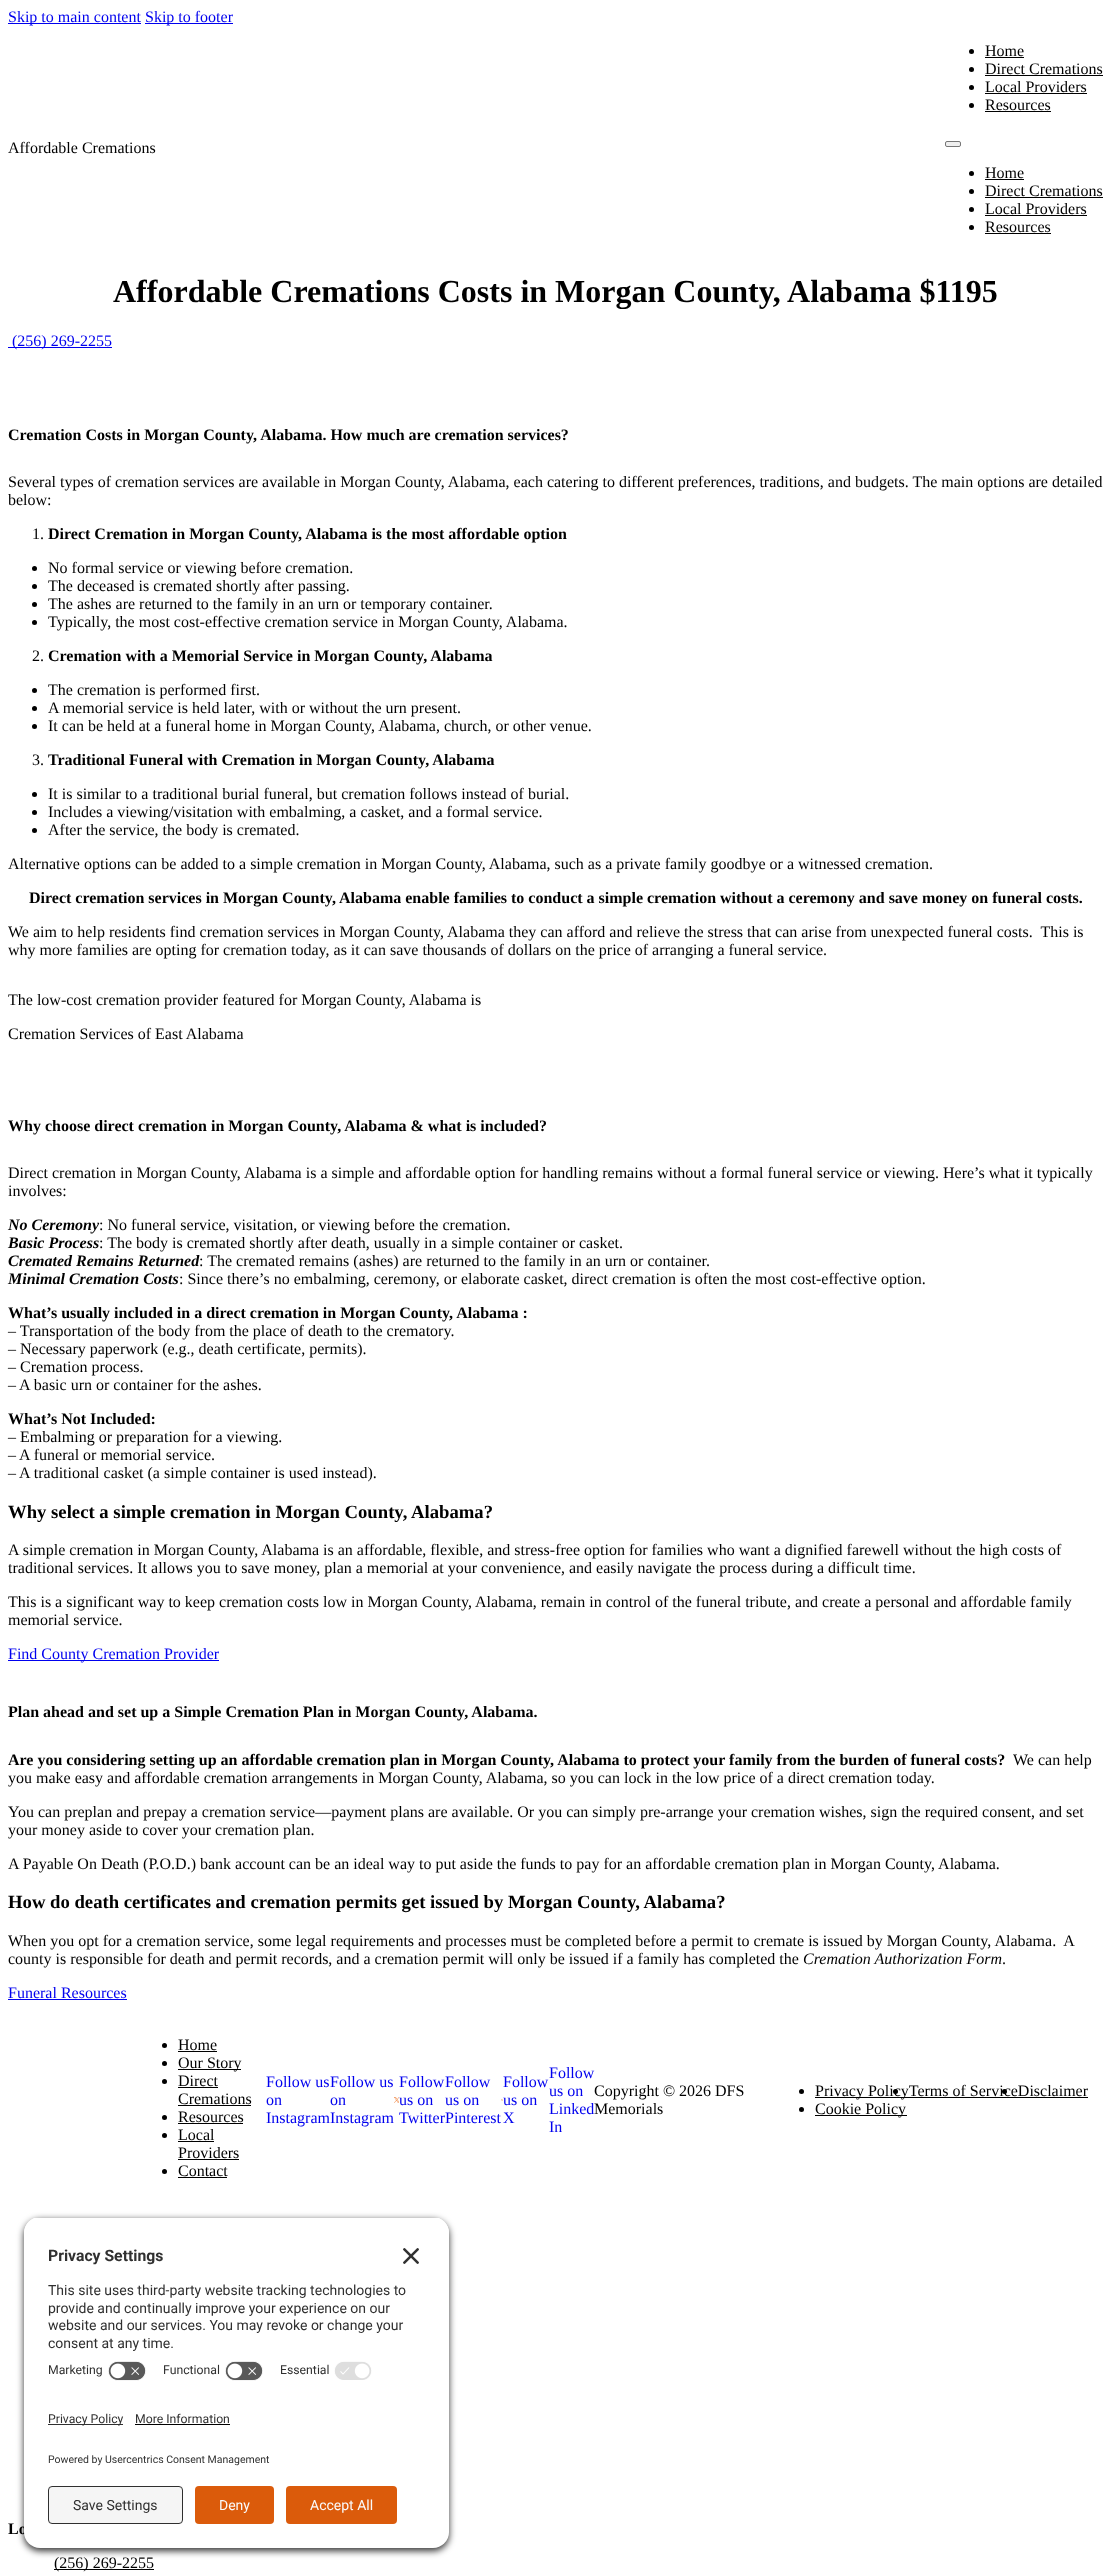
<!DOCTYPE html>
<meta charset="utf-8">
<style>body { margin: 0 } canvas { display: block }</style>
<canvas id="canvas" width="1111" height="2572"></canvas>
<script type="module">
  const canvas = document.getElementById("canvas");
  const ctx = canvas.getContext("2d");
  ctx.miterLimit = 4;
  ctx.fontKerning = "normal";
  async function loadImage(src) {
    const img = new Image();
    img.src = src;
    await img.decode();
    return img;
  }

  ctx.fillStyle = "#ffffff";
  ctx.fillRect(0, 0, 1111, 2572);
  ctx.fillStyle = "#0000ee";
  ctx.fillRect(8, 23, 133, 1);
  ctx.font = "16px Liberation Serif";
  ctx.fillText("Skip to main content", 8, 22);
  ctx.fillRect(145, 23, 88, 1);
  ctx.fillText("Skip to footer", 145, 22);
  ctx.fillStyle = "#000000";
  ctx.fillText("Affordable Cremations", 8, 153);
  ctx.beginPath();
  ctx.arc(971.5, 51.5, 2.5, 0, Math.PI * 2);
  ctx.fill();
  ctx.fillText("Home", 985, 56);
  ctx.fillRect(985, 57, 39, 1);
  ctx.beginPath();
  ctx.arc(971.5, 69.5, 2.5, 0, Math.PI * 2);
  ctx.fill();
  ctx.fillText("Direct Cremations", 985, 74);
  ctx.fillRect(985, 75, 118, 1);
  ctx.beginPath();
  ctx.arc(971.5, 87.5, 2.5, 0, Math.PI * 2);
  ctx.fill();
  ctx.fillText("Local Providers", 985, 92);
  ctx.fillRect(985, 93, 102, 1);
  ctx.beginPath();
  ctx.arc(971.5, 105.5, 2.5, 0, Math.PI * 2);
  ctx.fill();
  ctx.fillText("Resources", 985, 110);
  ctx.fillRect(985, 111, 66, 1);
  ctx.fillStyle = "#efefef";
  ctx.beginPath();
  ctx.roundRect(945.5, 141.5, 15, 5, 1.5);
  ctx.fill();
  ctx.strokeStyle = "#767676";
  ctx.stroke();
  ctx.fillStyle = "#000000";
  ctx.beginPath();
  ctx.arc(971.5, 173.5, 2.5, 0, Math.PI * 2);
  ctx.fill();
  ctx.fillText("Home", 985, 178);
  ctx.fillRect(985, 179, 39, 1);
  ctx.beginPath();
  ctx.arc(971.5, 191.5, 2.5, 0, Math.PI * 2);
  ctx.fill();
  ctx.fillText("Direct Cremations", 985, 196);
  ctx.fillRect(985, 197, 118, 1);
  ctx.beginPath();
  ctx.arc(971.5, 209.5, 2.5, 0, Math.PI * 2);
  ctx.fill();
  ctx.fillText("Local Providers", 985, 214);
  ctx.fillRect(985, 215, 102, 1);
  ctx.beginPath();
  ctx.arc(971.5, 227.5, 2.5, 0, Math.PI * 2);
  ctx.fill();
  ctx.fillText("Resources", 985, 232);
  ctx.fillRect(985, 233, 66, 1);
  ctx.font = "bold 32px Liberation Serif";
  ctx.fillText("Affordable Cremations Costs in Morgan County, Alabama $1195", 113, 302);
  ctx.fillStyle = "#0000ee";
  ctx.fillRect(8, 347, 104, 1);
  ctx.font = "16px Liberation Serif";
  ctx.fillText("(256) 269-2255", 12, 346);
  ctx.font = "bold 16px Liberation Serif";
  ctx.fillStyle = "#000000";
  ctx.fillText("Cremation Costs in Morgan County, Alabama. How much are cremation services?", 8, 440);
  ctx.font = "16px Liberation Serif";
  ctx.fillText("Several types of cremation services are available in Morgan County, Alabama, each catering to different preferences, traditions, and budgets. The main options are detailed", 8, 487);
  ctx.fillText("below:", 8, 505);
  ctx.fillText("1.", 32, 539);
  ctx.font = "bold 16px Liberation Serif";
  ctx.fillText("Direct Cremation in Morgan County, Alabama is the most affordable option", 48, 539);
  ctx.beginPath();
  ctx.arc(34.5, 568.5, 2.5, 0, Math.PI * 2);
  ctx.fill();
  ctx.font = "16px Liberation Serif";
  ctx.fillText("No formal service or viewing before cremation.", 48, 573);
  ctx.beginPath();
  ctx.arc(34.5, 586.5, 2.5, 0, Math.PI * 2);
  ctx.fill();
  ctx.fillText("The deceased is cremated shortly after passing.", 48, 591);
  ctx.beginPath();
  ctx.arc(34.5, 604.5, 2.5, 0, Math.PI * 2);
  ctx.fill();
  ctx.fillText("The ashes are returned to the family in an urn or temporary container.", 48, 609);
  ctx.beginPath();
  ctx.arc(34.5, 622.5, 2.5, 0, Math.PI * 2);
  ctx.fill();
  ctx.fillText("Typically, the most cost-effective cremation service in Morgan County, Alabama.", 48, 627);
  ctx.fillText("2.", 32, 661);
  ctx.font = "bold 16px Liberation Serif";
  ctx.fillText("Cremation with a Memorial Service in Morgan County, Alabama", 48, 661);
  ctx.beginPath();
  ctx.arc(34.5, 690.5, 2.5, 0, Math.PI * 2);
  ctx.fill();
  ctx.font = "16px Liberation Serif";
  ctx.fillText("The cremation is performed first.", 48, 695);
  ctx.beginPath();
  ctx.arc(34.5, 708.5, 2.5, 0, Math.PI * 2);
  ctx.fill();
  ctx.fillText("A memorial service is held later, with or without the urn present.", 48, 713);
  ctx.beginPath();
  ctx.arc(34.5, 726.5, 2.5, 0, Math.PI * 2);
  ctx.fill();
  ctx.fillText("It can be held at a funeral home in Morgan County, Alabama, church, or other venue.", 48, 731);
  ctx.fillText("3.", 32, 765);
  ctx.font = "bold 16px Liberation Serif";
  ctx.fillText("Traditional Funeral with Cremation in Morgan County, Alabama", 48, 765);
  ctx.beginPath();
  ctx.arc(34.5, 794.5, 2.5, 0, Math.PI * 2);
  ctx.fill();
  ctx.font = "16px Liberation Serif";
  ctx.fillText("It is similar to a traditional burial funeral, but cremation follows instead of burial.", 48, 799);
  ctx.beginPath();
  ctx.arc(34.5, 812.5, 2.5, 0, Math.PI * 2);
  ctx.fill();
  ctx.fillText("Includes a viewing/visitation with embalming, a casket, and a formal service.", 48, 817);
  ctx.beginPath();
  ctx.arc(34.5, 830.5, 2.5, 0, Math.PI * 2);
  ctx.fill();
  ctx.fillText("After the service, the body is cremated.", 48, 835);
  ctx.fillText("Alternative options can be added to a simple cremation in Morgan County, Alabama, such as a private family goodbye or a witnessed cremation.", 8, 869);
  ctx.font = "bold 16px Liberation Serif";
  ctx.fillText("Direct cremation services in Morgan County, Alabama enable families to conduct a simple cremation without a ceremony and save money on funeral costs.", 29, 903);
  ctx.font = "16px Liberation Serif";
  ctx.fillText("We aim to help residents find cremation services in Morgan County, Alabama they can afford and relieve the stress that can arise from unexpected funeral costs.  This is", 8, 937);
  ctx.fillText("why more families are opting for cremation today, as it can save thousands of dollars on the price of arranging a funeral service.", 8, 955);
  ctx.fillText("The low-cost cremation provider featured for Morgan County, Alabama is", 8, 1005);
  ctx.fillText("Cremation Services of East Alabama", 8, 1039);
  ctx.font = "bold 16px Liberation Serif";
  ctx.fillText("Why choose direct cremation in Morgan County, Alabama & what is included?", 8, 1131);
  ctx.font = "16px Liberation Serif";
  ctx.fillText("Direct cremation in Morgan County, Alabama is a simple and affordable option for handling remains without a formal funeral service or viewing. Here’s what it typically", 8, 1178);
  ctx.fillText("involves:", 8, 1196);
  ctx.font = "italic bold 16px Liberation Serif";
  ctx.fillText("No Ceremony", 8, 1230);
  ctx.font = "16px Liberation Serif";
  ctx.fillText(": No funeral service, visitation, or viewing before the cremation.", 99, 1230);
  ctx.font = "italic bold 16px Liberation Serif";
  ctx.fillText("Basic Process", 8, 1248);
  ctx.font = "16px Liberation Serif";
  ctx.fillText(": The body is cremated shortly after death, usually in a simple container or casket.", 99, 1248);
  ctx.font = "italic bold 16px Liberation Serif";
  ctx.fillText("Cremated Remains Returned", 8, 1266);
  ctx.font = "16px Liberation Serif";
  ctx.fillText(": The cremated remains (ashes) are returned to the family in an urn or container.", 199, 1266);
  ctx.font = "italic bold 16px Liberation Serif";
  ctx.fillText("Minimal Cremation Costs", 8, 1284);
  ctx.font = "16px Liberation Serif";
  ctx.fillText(": Since there’s no embalming, ceremony, or elaborate casket, direct cremation is often the most cost-effective option.", 179, 1284);
  ctx.font = "bold 16px Liberation Serif";
  ctx.fillText("What’s usually included in a direct cremation in Morgan County, Alabama :", 8, 1318);
  ctx.font = "16px Liberation Serif";
  ctx.fillText("– Transportation of the body from the place of death to the crematory.", 8, 1336);
  ctx.fillText("– Necessary paperwork (e.g., death certificate, permits).", 8, 1354);
  ctx.fillText("– Cremation process.", 8, 1372);
  ctx.fillText("– A basic urn or container for the ashes.", 8, 1390);
  ctx.font = "bold 16px Liberation Serif";
  ctx.fillText("What’s Not Included:", 8, 1424);
  ctx.font = "16px Liberation Serif";
  ctx.fillText("– Embalming or preparation for a viewing.", 8, 1442);
  ctx.fillText("– A funeral or memorial service.", 8, 1460);
  ctx.fillText("– A traditional casket (a simple container is used instead).", 8, 1478);
  ctx.font = "bold 18.7px Liberation Serif";
  ctx.fillText("Why select a simple cremation in Morgan County, Alabama?", 8, 1518);
  ctx.font = "16px Liberation Serif";
  ctx.fillText("A simple cremation in Morgan County, Alabama is an affordable, flexible, and stress-free option for families who want a dignified farewell without the high costs of", 8, 1555);
  ctx.fillText("traditional services. It allows you to save money, plan a memorial at your convenience, and easily navigate the process during a difficult time.", 8, 1573);
  ctx.fillText("This is a significant way to keep cremation costs low in Morgan County, Alabama, remain in control of the funeral tribute, and create a personal and affordable family", 8, 1607);
  ctx.fillText("memorial service.", 8, 1625);
  ctx.fillStyle = "#0000ee";
  ctx.fillRect(8, 1660, 211, 1);
  ctx.fillText("Find County Cremation Provider", 8, 1659);
  ctx.font = "bold 16px Liberation Serif";
  ctx.fillStyle = "#000000";
  ctx.fillText("Plan ahead and set up a Simple Cremation Plan in Morgan County, Alabama.", 8, 1717);
  ctx.fillText("Are you considering setting up an affordable cremation plan in Morgan County, Alabama to protect your family from the burden of funeral costs?", 8, 1765);
  ctx.font = "16px Liberation Serif";
  ctx.fillText("We can help", 1013, 1765);
  ctx.fillText("you make easy and affordable cremation arrangements in Morgan County, Alabama, so you can lock in the low price of a direct cremation today.", 8, 1783);
  ctx.fillText("You can preplan and prepay a cremation service—payment plans are available. Or you can simply pre-arrange your cremation wishes, sign the required consent, and set", 8, 1817);
  ctx.fillText("your money aside to cover your cremation plan.", 8, 1835);
  ctx.fillText("A Payable On Death (P.O.D.) bank account can be an ideal way to put aside the funds to pay for an affordable cremation plan in Morgan County, Alabama.", 8, 1869);
  ctx.font = "bold 18.7px Liberation Serif";
  ctx.fillText("How do death certificates and cremation permits get issued by Morgan County, Alabama?", 8, 1908);
  ctx.font = "16px Liberation Serif";
  ctx.fillText("When you opt for a cremation service, some legal requirements and processes must be completed before a permit to cremate is issued by Morgan County, Alabama.  A", 8, 1946);
  ctx.fillText("county is responsible for death and permit records, and a cremation permit will only be issued if a family has completed the", 8, 1964);
  ctx.font = "italic 16px Liberation Serif";
  ctx.fillText("Cremation Authorization Form", 803, 1964);
  ctx.font = "16px Liberation Serif";
  ctx.fillText(".", 1002, 1964);
  ctx.fillStyle = "#0000ee";
  ctx.fillText("Funeral Resources", 8, 1998);
  ctx.fillRect(8, 1999, 119, 1);
  ctx.font = "bold 16px Liberation Serif";
  ctx.fillStyle = "#000000";
  ctx.fillText("Lo", 8, 2534);
  ctx.fillRect(54, 2569, 100, 1);
  ctx.font = "16px Liberation Serif";
  ctx.fillText("(256) 269-2255", 54, 2568);
  ctx.beginPath();
  ctx.arc(164.5, 2045.5, 2.5, 0, Math.PI * 2);
  ctx.fill();
  ctx.fillText("Home", 178, 2050);
  ctx.fillRect(178, 2051, 39, 1);
  ctx.beginPath();
  ctx.arc(164.5, 2063.5, 2.5, 0, Math.PI * 2);
  ctx.fill();
  ctx.fillRect(178, 2069, 63, 1);
  ctx.fillText("Our Story", 178, 2068);
  ctx.beginPath();
  ctx.arc(164.5, 2081.5, 2.5, 0, Math.PI * 2);
  ctx.fill();
  ctx.fillText("Direct", 178, 2086);
  ctx.fillRect(178, 2087, 40, 1);
  ctx.fillText("Cremations", 178, 2104);
  ctx.fillRect(178, 2105, 73, 1);
  ctx.beginPath();
  ctx.arc(164.5, 2117.5, 2.5, 0, Math.PI * 2);
  ctx.fill();
  ctx.fillText("Resources", 178, 2122);
  ctx.fillRect(178, 2123, 65, 1);
  ctx.beginPath();
  ctx.arc(164.5, 2135.5, 2.5, 0, Math.PI * 2);
  ctx.fill();
  ctx.fillText("Local", 178, 2140);
  ctx.fillRect(178, 2141, 36, 1);
  ctx.fillText("Providers", 178, 2158);
  ctx.fillRect(178, 2159, 61, 1);
  ctx.beginPath();
  ctx.arc(164.5, 2171.5, 2.5, 0, Math.PI * 2);
  ctx.fill();
  ctx.fillText("Contact", 178, 2176);
  ctx.fillRect(178, 2177, 49, 1);
  ctx.fillStyle = "#0000ee";
  ctx.fillText("Follow us", 266, 2087);
  ctx.fillText("on", 266, 2105);
  ctx.fillText("InstagramInstagram", 266, 2123);
  ctx.fillText("Follow", 549, 2078);
  ctx.fillText("us on", 549, 2096);
  ctx.fillText("Linked", 549, 2114);
  ctx.fillText("In", 549, 2132);
  ctx.fillText("Follow us", 330, 2087);
  ctx.fillText("on", 330, 2105);
  ctx.drawImage(await loadImage("img1.png"), 394, 2097, 5, 6);
  ctx.fillText("Follow", 399, 2087);
  ctx.fillText("us on", 399, 2105);
  ctx.fillText("TwitterPinterest", 399, 2123);
  ctx.fillText("Follow", 445, 2087);
  ctx.fillText("us on", 445, 2105);
  ctx.drawImage(await loadImage("img2.png"), 501, 2099, 2, 2);
  ctx.fillText("Follow", 503, 2087);
  ctx.fillText("us on", 503, 2105);
  ctx.fillText("X", 503, 2123);
  ctx.fillStyle = "#000000";
  ctx.fillText("Copyright © 2026 DFS", 594, 2096);
  ctx.fillText("Memorials", 594, 2114);
  ctx.beginPath();
  ctx.arc(801.5, 2091.5, 2.5, 0, Math.PI * 2);
  ctx.fill();
  ctx.fillRect(815, 2097, 94, 1);
  ctx.fillText("Privacy PolicyTerms of ServiceDisclaimer", 815, 2096);
  ctx.beginPath();
  ctx.arc(895.5, 2091.5, 2.5, 0, Math.PI * 2);
  ctx.fill();
  ctx.fillRect(909, 2097, 179, 1);
  ctx.beginPath();
  ctx.arc(1004.5, 2091.5, 2.5, 0, Math.PI * 2);
  ctx.fill();
  ctx.beginPath();
  ctx.arc(801.5, 2109.5, 2.5, 0, Math.PI * 2);
  ctx.fill();
  ctx.fillRect(815, 2115, 92, 1);
  ctx.fillText("Cookie Policy", 815, 2114);
  ctx.fillStyle = "rgba(0, 0, 0, 0.8)";
  ctx.filter = "blur(3.5px)";
  ctx.beginPath();
  ctx.roundRect(24, 2220, 425, 331, 16);
  ctx.fill();
  ctx.filter = "none";
  ctx.save();
  ctx.beginPath();
  ctx.roundRect(24, 2217, 425, 179, [16, 16, 0, 0]);
  ctx.clip();
  ctx.fillStyle = "#ffffff";
  ctx.fillRect(24, 2218, 425, 178);
  ctx.fillRect(24, 2218, 425, 138);
  ctx.restore();
  ctx.font = "bold 15.75px Roboto";
  ctx.fillStyle = "#303030";
  ctx.fillText("Privacy Settings", 48, 2261);
  ctx.drawImage(await loadImage("img3.png"), 403, 2248, 16, 16);
  ctx.font = "14px Roboto";
  ctx.fillText("This site uses third-party website tracking technologies to", 48, 2295);
  ctx.fillText("provide and continually improve your experience on our", 48, 2313);
  ctx.fillText("website and our services. You may revoke or change your", 48, 2330);
  ctx.fillText("consent at any time.", 48, 2348);
  ctx.font = "12.25px Roboto";
  ctx.fillText("Marketing", 48, 2374);
  ctx.drawImage(await loadImage("img4.png"), 108, 2361, 38, 20);
  ctx.fillText("Functional", 163, 2374);
  ctx.drawImage(await loadImage("img4.png"), 225, 2361, 38, 20);
  ctx.fillText("Essential", 280, 2374);
  ctx.drawImage(await loadImage("img5.png"), 334, 2361, 38, 19);
  ctx.fillStyle = "#ffffff";
  ctx.beginPath();
  ctx.roundRect(24, 2396, 425, 152, [0, 0, 16, 16]);
  ctx.fill();
  ctx.fillStyle = "#303030";
  ctx.fillRect(48, 2424, 75, 1);
  ctx.fillText("Privacy Policy", 48, 2423);
  ctx.fillText("More Information", 135, 2423);
  ctx.fillStyle = "#000000";
  ctx.fillRect(135, 2424, 95, 1);
  ctx.font = "10.5px Roboto";
  ctx.fillStyle = "#303030";
  ctx.fillText("Powered by Usercentrics Consent Management", 48, 2463);
  ctx.fillStyle = "#f5f5f5";
  ctx.beginPath();
  ctx.roundRect(48.5, 2486.5, 134, 37, 3.5);
  ctx.fill();
  ctx.strokeStyle = "#303030";
  ctx.stroke();
  ctx.font = "14px Roboto";
  ctx.fillStyle = "#303030";
  ctx.fillText("Save Settings", 73, 2510);
  ctx.fillStyle = "#db5b0b";
  ctx.beginPath();
  ctx.roundRect(195, 2486, 79, 38, 4);
  ctx.fill();
  ctx.fillStyle = "#fafafa";
  ctx.fillText("Deny", 219, 2510);
  ctx.fillStyle = "#db5b0b";
  ctx.beginPath();
  ctx.roundRect(286, 2486, 111, 38, 4);
  ctx.fill();
  ctx.fillStyle = "#fafafa";
  ctx.fillText("Accept All", 310, 2510);
</script>
